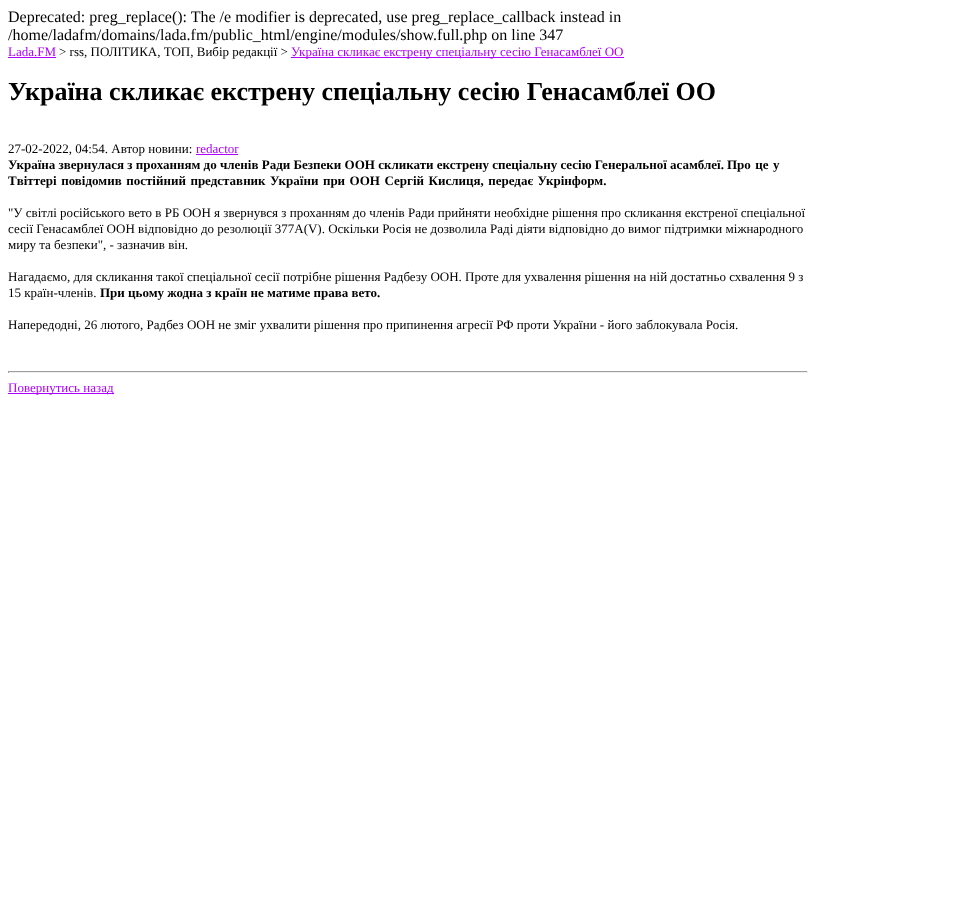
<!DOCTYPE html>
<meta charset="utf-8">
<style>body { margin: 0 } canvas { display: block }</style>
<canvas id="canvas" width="958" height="912"></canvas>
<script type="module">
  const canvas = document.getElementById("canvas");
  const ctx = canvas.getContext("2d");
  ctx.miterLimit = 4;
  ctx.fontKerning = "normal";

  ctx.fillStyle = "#ffffff";
  ctx.fillRect(0, 0, 958, 912);
  ctx.font = "16px Liberation Serif";
  ctx.fillStyle = "#000000";
  ctx.fillText("Deprecated: preg_replace(): The /e modifier is deprecated, use preg_replace_callback instead in", 8, 22);
  ctx.fillText("/home/ladafm/domains/lada.fm/public_html/engine/modules/show.full.php on line 347", 8, 40);
  ctx.font = "13px Liberation Serif";
  ctx.fillStyle = "#af00ff";
  ctx.fillText("Lada.FM", 8, 56);
  ctx.fillRect(8, 57, 48, 1);
  ctx.fillStyle = "#000000";
  ctx.fillText("> rss, ПОЛІТИКА, ТОП, Вибір редакції >", 59, 56);
  ctx.fillStyle = "#af00ff";
  ctx.fillRect(291, 57, 333, 1);
  ctx.fillText("Україна скликає екстрену спеціальну сесію Генасамблеї ОО", 291, 56);
  ctx.font = "bold 26px Liberation Serif";
  ctx.fillStyle = "#000000";
  ctx.fillText("Україна скликає екстрену спеціальну сесію Генасамблеї ОО", 8, 100);
  ctx.font = "13px Liberation Serif";
  ctx.fillText("27-02-2022, 04:54. Автор новини:", 8, 153);
  ctx.fillStyle = "#af00ff";
  ctx.fillText("redactor", 196, 153);
  ctx.fillRect(196, 154, 42, 1);
  ctx.font = "bold 13px Liberation Serif";
  ctx.fillStyle = "#000000";
  ctx.fillText("Україна звернулася з проханням до членів Ради Безпеки ООН скликати екстрену спеціальну сесію Генеральної асамблеї.", 8, 169);
  ctx.wordSpacing = "1.25px";
  ctx.fillText("Про це у", 727, 169);
  ctx.fillText("Tвіттері повідомив постійний представник України при ООН Сергій Кислиця, передає Укрінформ.", 8, 185);
  ctx.wordSpacing = "0px";
  ctx.font = "13px Liberation Serif";
  ctx.fillText("\"У світлі російського вето в РБ ООН я звернувся з проханням до членів Ради прийняти необхідне рішення про скликання екстреної спеціальної", 8, 217);
  ctx.fillText("сесії Генасамблеї ООН відповідно до резолюції 377A(V). Оскільки Росія не дозволила Раді діяти відповідно до вимог підтримки міжнародного", 8, 233);
  ctx.fillText("миру та безпеки\", - зазначив він.", 8, 249);
  ctx.fillText("Нагадаємо, для скликання такої спеціальної сесії потрібне рішення Радбезу ООН. Проте для ухвалення рішення на ній достатньо схвалення 9 з", 8, 281);
  ctx.fillText("15 країн-членів.", 8, 297);
  ctx.font = "bold 13px Liberation Serif";
  ctx.fillText("При цьому жодна з країн не матиме права вето.", 100, 297);
  ctx.font = "13px Liberation Serif";
  ctx.fillText("Напередодні, 26 лютого, Радбез ООН не зміг ухвалити рішення про припинення агресії РФ проти України - його заблокувала Росія.", 8, 329);
  ctx.fillStyle = "#9f9f9f";
  ctx.fillRect(8, 371, 800, 1);
  ctx.fillStyle = "#eeeeee";
  ctx.fillRect(807, 371, 1, 2);
  ctx.fillRect(8, 372, 800, 1);
  ctx.fillStyle = "#9f9f9f";
  ctx.fillRect(8, 371, 1, 2);
  ctx.fillStyle = "#af00ff";
  ctx.fillRect(8, 393, 106, 1);
  ctx.fillText("Повернутись назад", 8, 392);
</script>
